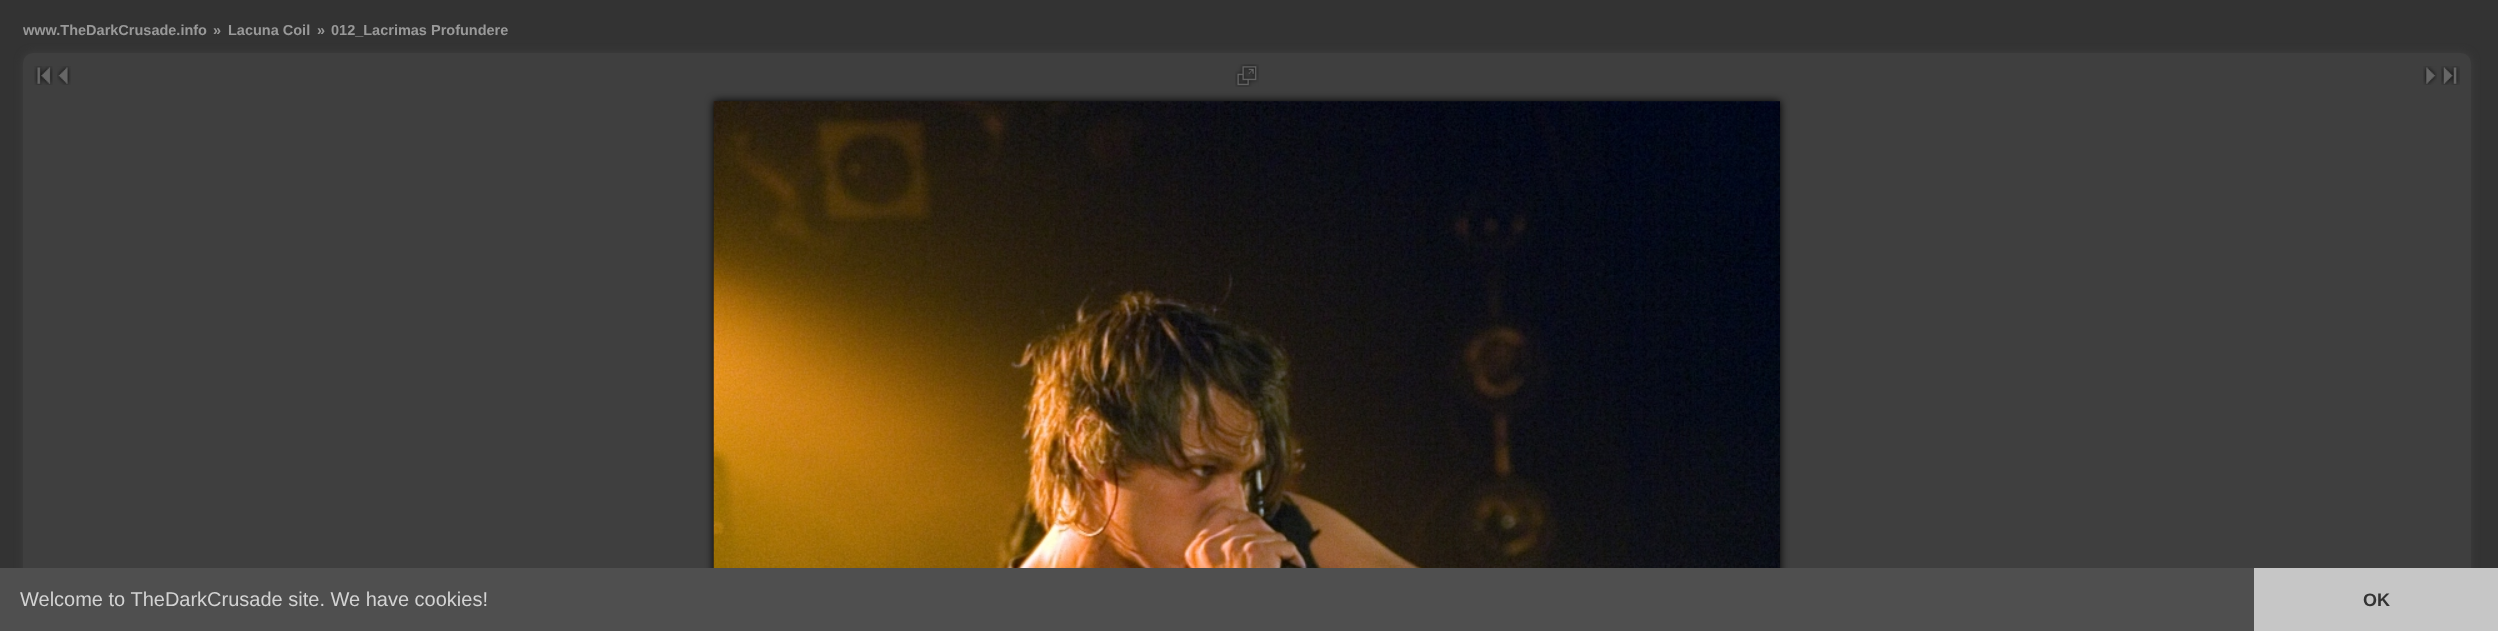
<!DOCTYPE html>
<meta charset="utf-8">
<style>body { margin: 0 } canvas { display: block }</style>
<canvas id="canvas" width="2498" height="631"></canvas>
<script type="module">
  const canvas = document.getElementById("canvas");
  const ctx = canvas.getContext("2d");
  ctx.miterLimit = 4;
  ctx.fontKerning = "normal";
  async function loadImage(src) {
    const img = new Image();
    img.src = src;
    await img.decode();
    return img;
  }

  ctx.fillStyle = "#333333";
  ctx.fillRect(0, 0, 2498, 631);
  ctx.font = "bold 14.5px Liberation Sans";
  ctx.fillStyle = "#999999";
  ctx.fillText("www.TheDarkCrusade.info", 23, 35);
  ctx.fillText("»", 213, 35);
  ctx.fillText("Lacuna Coil", 228, 35);
  ctx.fillText("»", 317, 35);
  ctx.fillText("012_Lacrimas Profundere", 331, 35);
  ctx.fillStyle = "#3f3f3f";
  ctx.filter = "blur(4px)";
  ctx.beginPath();
  ctx.roundRect(23, 53, 2448, 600, 10);
  ctx.fill();
  ctx.filter = "none";
  ctx.beginPath();
  ctx.roundRect(23, 53, 2448, 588, 10);
  ctx.fill();
  ctx.drawImage(await loadImage("img1.png"), 34, 66, 19, 19);
  ctx.drawImage(await loadImage("img2.png"), 57, 66, 14, 19);
  ctx.drawImage(await loadImage("img3.png"), 1235, 64, 24, 23);
  ctx.drawImage(await loadImage("img4.png"), 2423, 66, 14, 19);
  ctx.drawImage(await loadImage("img5.png"), 2441, 66, 19, 19);
  ctx.fillStyle = "#000000";
  ctx.filter = "blur(4px)";
  ctx.beginPath();
  ctx.rect(714, 101, 1066, 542);
  ctx.fill();
  ctx.filter = "none";
  ctx.drawImage(await loadImage("img6.png"), 713, 101, 1067, 467);
  ctx.fillStyle = "#4f4f4f";
  ctx.fillRect(0, 568, 2254, 63);
  ctx.font = "20px Liberation Sans";
  ctx.fillStyle = "#d3d3d3";
  ctx.fillText("Welcome to TheDarkCrusade site. We have cookies!", 20, 606);
  ctx.fillStyle = "#c6c6c6";
  ctx.fillRect(2254, 568, 244, 63);
  ctx.font = "bold 18px Liberation Sans";
  ctx.fillStyle = "#333333";
  ctx.fillText("OK", 2363, 606);
</script>
